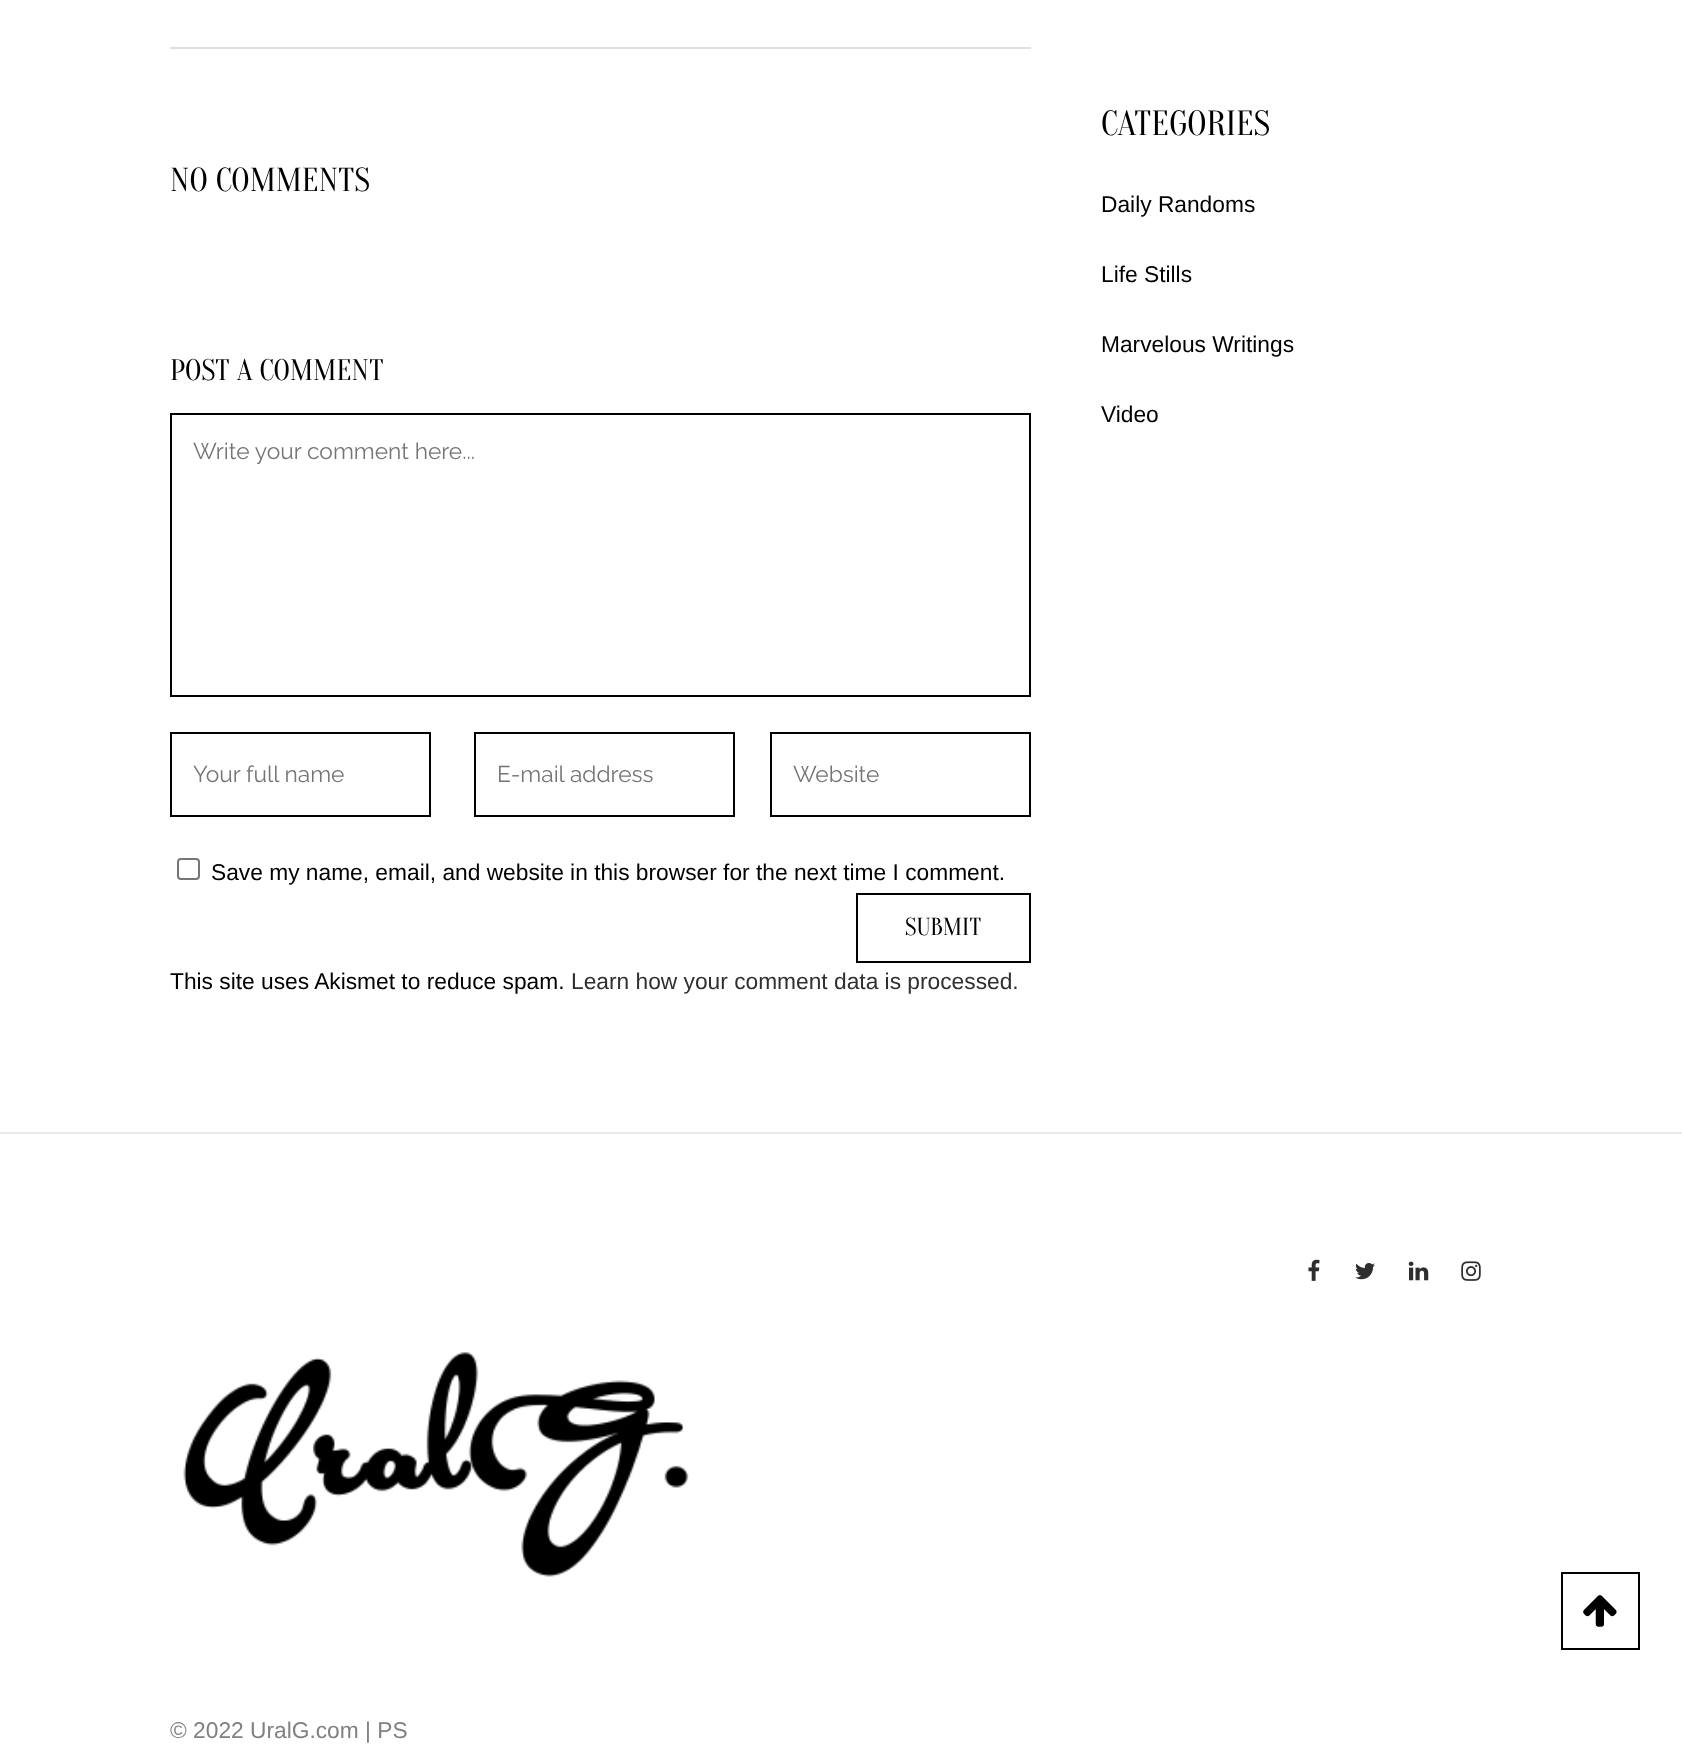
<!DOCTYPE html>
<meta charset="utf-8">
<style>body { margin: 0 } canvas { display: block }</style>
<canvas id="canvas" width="1682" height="1764"></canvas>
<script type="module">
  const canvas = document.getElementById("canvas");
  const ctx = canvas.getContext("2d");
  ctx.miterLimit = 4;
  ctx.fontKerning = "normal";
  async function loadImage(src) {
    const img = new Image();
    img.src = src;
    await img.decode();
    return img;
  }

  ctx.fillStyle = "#ffffff";
  ctx.fillRect(0, 0, 1682, 1764);
  ctx.fillStyle = "#e0e0e0";
  ctx.fillRect(170, 47, 861, 2);
  ctx.font = "33.25px Oranienbaum";
  ctx.fillStyle = "#000000";
  ctx.fillText("NO COMMENTS", 170, 191);
  ctx.font = "29.75px Oranienbaum";
  ctx.fillText("POST A COMMENT", 170, 380);
  ctx.strokeStyle = "#000000";
  ctx.lineWidth = 2;
  ctx.strokeRect(171, 414, 859, 282);
  ctx.font = "22.75px Raleway";
  ctx.fillStyle = "#757575";
  ctx.fillText("Write your comment here...", 193, 459);
  ctx.strokeRect(171, 733, 259, 83);
  ctx.fillText("Your full name", 193, 782);
  ctx.strokeRect(475, 733, 259, 83);
  ctx.fillText("E-mail address", 497, 782);
  ctx.strokeRect(771, 733, 259, 83);
  ctx.fillText("Website", 793, 782);
  ctx.beginPath();
  ctx.roundRect(178, 859, 21, 20, 3);
  ctx.strokeStyle = "#767676";
  ctx.stroke();
  ctx.font = "22.75px Liberation Sans";
  ctx.fillStyle = "#000000";
  ctx.fillText("Save my name, email, and website in this browser for the next time I comment.", 211, 880);
  ctx.strokeStyle = "#000000";
  ctx.strokeRect(857, 894, 173, 68);
  ctx.font = "24.5px Oranienbaum";
  ctx.fillText("SUBMIT", 905, 935);
  ctx.font = "22.75px Liberation Sans";
  ctx.fillText("This site uses Akismet to reduce spam.", 170, 989);
  ctx.fillStyle = "#303030";
  ctx.fillText("Learn how your comment data is processed.", 571, 989);
  ctx.font = "35px Oranienbaum";
  ctx.fillStyle = "#000000";
  ctx.fillText("CATEGORIES", 1101, 135);
  ctx.font = "22.75px Liberation Sans";
  ctx.fillText("Daily Randoms", 1101, 212);
  ctx.fillText("Life Stills", 1101, 282);
  ctx.fillText("Marvelous Writings", 1101, 352);
  ctx.fillText("Video", 1101, 422);
  ctx.strokeRect(1562, 1573, 77, 76);
  ctx.drawImage(await loadImage("img1.png"), 1583, 1595, 34, 32);
  ctx.fillStyle = "#e8e8e8";
  ctx.fillRect(0, 1132, 1682, 2);
  ctx.drawImage(await loadImage("img2.png"), 1308, 1259, 12, 22);
  ctx.drawImage(await loadImage("img3.png"), 1355, 1263, 20, 17);
  ctx.drawImage(await loadImage("img4.png"), 1408, 1261, 21, 20);
  ctx.drawImage(await loadImage("img5.png"), 1461, 1261, 20, 20);
  ctx.drawImage(await loadImage("img6.png"), 183, 1352, 506, 225);
  ctx.fillStyle = "#818181";
  ctx.fillText("© 2022 UralG.com | PS", 170, 1738);
</script>
